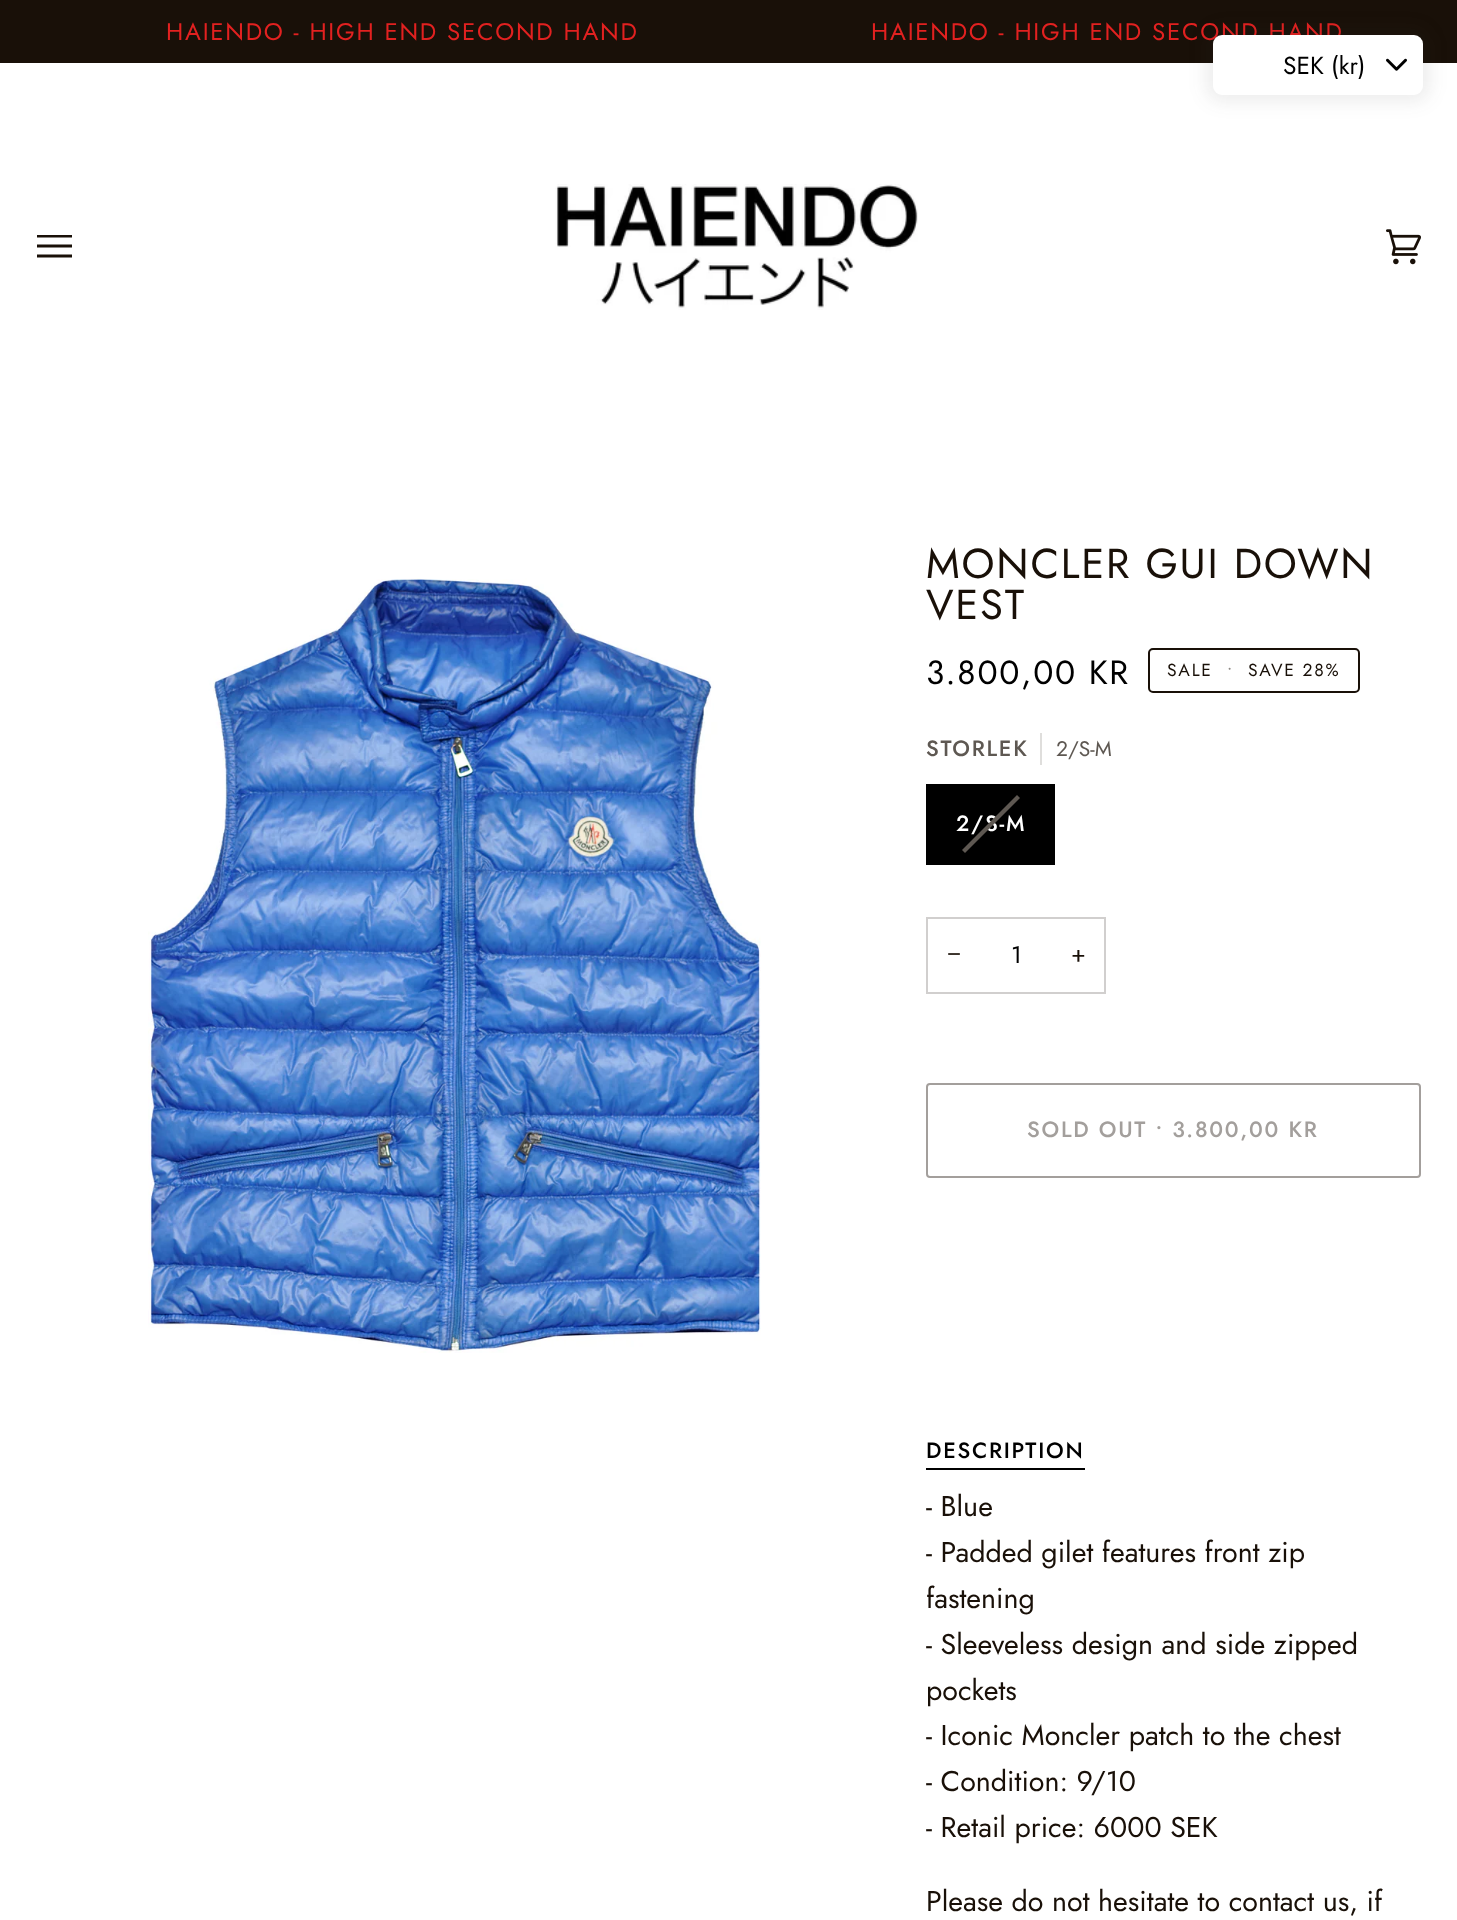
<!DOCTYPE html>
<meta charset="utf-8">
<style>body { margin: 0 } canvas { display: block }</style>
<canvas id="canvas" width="1457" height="1920"></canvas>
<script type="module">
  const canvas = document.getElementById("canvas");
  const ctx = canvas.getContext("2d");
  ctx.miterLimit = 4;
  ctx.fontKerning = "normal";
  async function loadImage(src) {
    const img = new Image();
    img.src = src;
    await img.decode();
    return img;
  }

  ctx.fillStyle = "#ffffff";
  ctx.fillRect(0, 0, 1457, 1920);
  ctx.fillStyle = "#191008";
  ctx.fillRect(0, 0, 1457, 63);
  ctx.letterSpacing = "1.75px";
  ctx.font = "24.1px Jost";
  ctx.fillStyle = "#e22120";
  ctx.fillText("HAIENDO - HIGH END SECOND HAND", 166, 40);
  ctx.fillText("HAIENDO - HIGH END SECOND HAND", 871, 40);
  ctx.fillStyle = "rgba(60, 60, 60, 0.09)";
  ctx.filter = "blur(9px)";
  ctx.beginPath();
  ctx.roundRect(1206, 28, 224, 74, 16);
  ctx.fill();
  ctx.filter = "none";
  ctx.fillStyle = "#ffffff";
  ctx.beginPath();
  ctx.roundRect(1213, 35, 210, 60, 9);
  ctx.fill();
  ctx.letterSpacing = "0px";
  ctx.font = "24.5px Jost";
  ctx.fillStyle = "#000000";
  ctx.fillText("SEK (kr)", 1283, 74);
  ctx.drawImage(await loadImage("img1.png"), 1386, 58, 21, 13);
  ctx.fillStyle = "#191008";
  ctx.beginPath();
  ctx.moveTo(37, 235);
  ctx.lineTo(72, 235);
  ctx.lineTo(72, 237.5);
  ctx.lineTo(37, 237.5);
  ctx.closePath();
  ctx.moveTo(37, 244.5);
  ctx.lineTo(72, 244.5);
  ctx.lineTo(72, 247.5);
  ctx.lineTo(37, 247.5);
  ctx.closePath();
  ctx.moveTo(37, 254.5);
  ctx.lineTo(72, 254.5);
  ctx.lineTo(72, 257.5);
  ctx.lineTo(37, 257.5);
  ctx.closePath();
  ctx.fill();
  ctx.drawImage(await loadImage("img2.png"), 555, 184, 363, 126);
  ctx.drawImage(await loadImage("img3.png"), 1386, 229, 35, 36);
  ctx.drawImage(await loadImage("img4.png"), 148, 578, 613, 775);
  ctx.letterSpacing = "1.75px";
  ctx.font = "41.75px Jost";
  ctx.fillText("MONCLER GUI DOWN", 926, 578);
  ctx.fillText("VEST", 926, 619);
  ctx.font = "33.5px Jost";
  ctx.fillStyle = "#000000";
  ctx.fillText("3.800,00 KR", 926, 684);
  ctx.beginPath();
  ctx.roundRect(1149, 649, 210, 43, 4);
  ctx.strokeStyle = "#191008";
  ctx.lineWidth = 2;
  ctx.stroke();
  ctx.font = "17.5px Jost";
  ctx.fillStyle = "#191008";
  ctx.fillText("SALE", 1167, 676);
  ctx.fillStyle = "#8c8884";
  ctx.fillText("•", 1227, 676);
  ctx.fillStyle = "#191008";
  ctx.fillText("SAVE 28%", 1248, 676);
  ctx.font = "500 22px Jost";
  ctx.fillStyle = "#5e5852";
  ctx.fillText("STORLEK", 926, 756);
  ctx.fillStyle = "#dfdedc";
  ctx.fillRect(1040, 733, 2, 32);
  ctx.letterSpacing = "0px";
  ctx.font = "21px Jost";
  ctx.fillStyle = "#5e5852";
  ctx.fillText("2/S-M", 1056, 756);
  ctx.fillStyle = "#000000";
  ctx.fillRect(926, 784, 129, 81);
  ctx.letterSpacing = "1.75px";
  ctx.font = "500 22px Jost";
  ctx.fillStyle = "#ffffff";
  ctx.fillText("2/S-M", 956, 831);
  ctx.fillStyle = "#5e5852";
  ctx.beginPath();
  ctx.moveTo(1017, 795);
  ctx.lineTo(1020, 798);
  ctx.lineTo(965, 853);
  ctx.lineTo(962, 850);
  ctx.closePath();
  ctx.fill();
  ctx.strokeStyle = "#d1cfce";
  ctx.strokeRect(927, 918, 178, 75);
  ctx.letterSpacing = "0px";
  ctx.font = "24px Liberation Sans";
  ctx.fillStyle = "#191008";
  ctx.fillText("−", 947, 962);
  ctx.font = "24px Jost";
  ctx.fillStyle = "#000000";
  ctx.fillText("1", 1011, 963);
  ctx.fillStyle = "#191008";
  ctx.fillText("+", 1071, 962);
  ctx.beginPath();
  ctx.roundRect(927, 1084, 493, 93, 3);
  ctx.strokeStyle = "#a39f9c";
  ctx.stroke();
  ctx.letterSpacing = "1.75px";
  ctx.font = "500 22px Jost";
  ctx.fillStyle = "#a39f9c";
  ctx.fillText("SOLD OUT • 3.800,00 KR", 1027, 1137);
  ctx.fillStyle = "#000000";
  ctx.fillRect(926, 1468, 159, 2);
  ctx.fillText("DESCRIPTION", 926, 1458);
  ctx.letterSpacing = "0px";
  ctx.font = "28.6px Jost";
  ctx.fillStyle = "#191008";
  ctx.fillText("- Blue", 926, 1516);
  ctx.fillText("- Padded gilet features front zip", 926, 1562);
  ctx.fillText("fastening", 926, 1608);
  ctx.fillText("- Sleeveless design and side zipped", 926, 1654);
  ctx.fillText("pockets", 926, 1700);
  ctx.fillText("- Iconic Moncler patch to the chest", 926, 1745);
  ctx.fillText("- Condition: 9/10", 926, 1791);
  ctx.fillText("- Retail price: 6000 SEK", 926, 1837);
  ctx.fillText("Please do not hesitate to contact us, if", 926, 1911);
</script>
